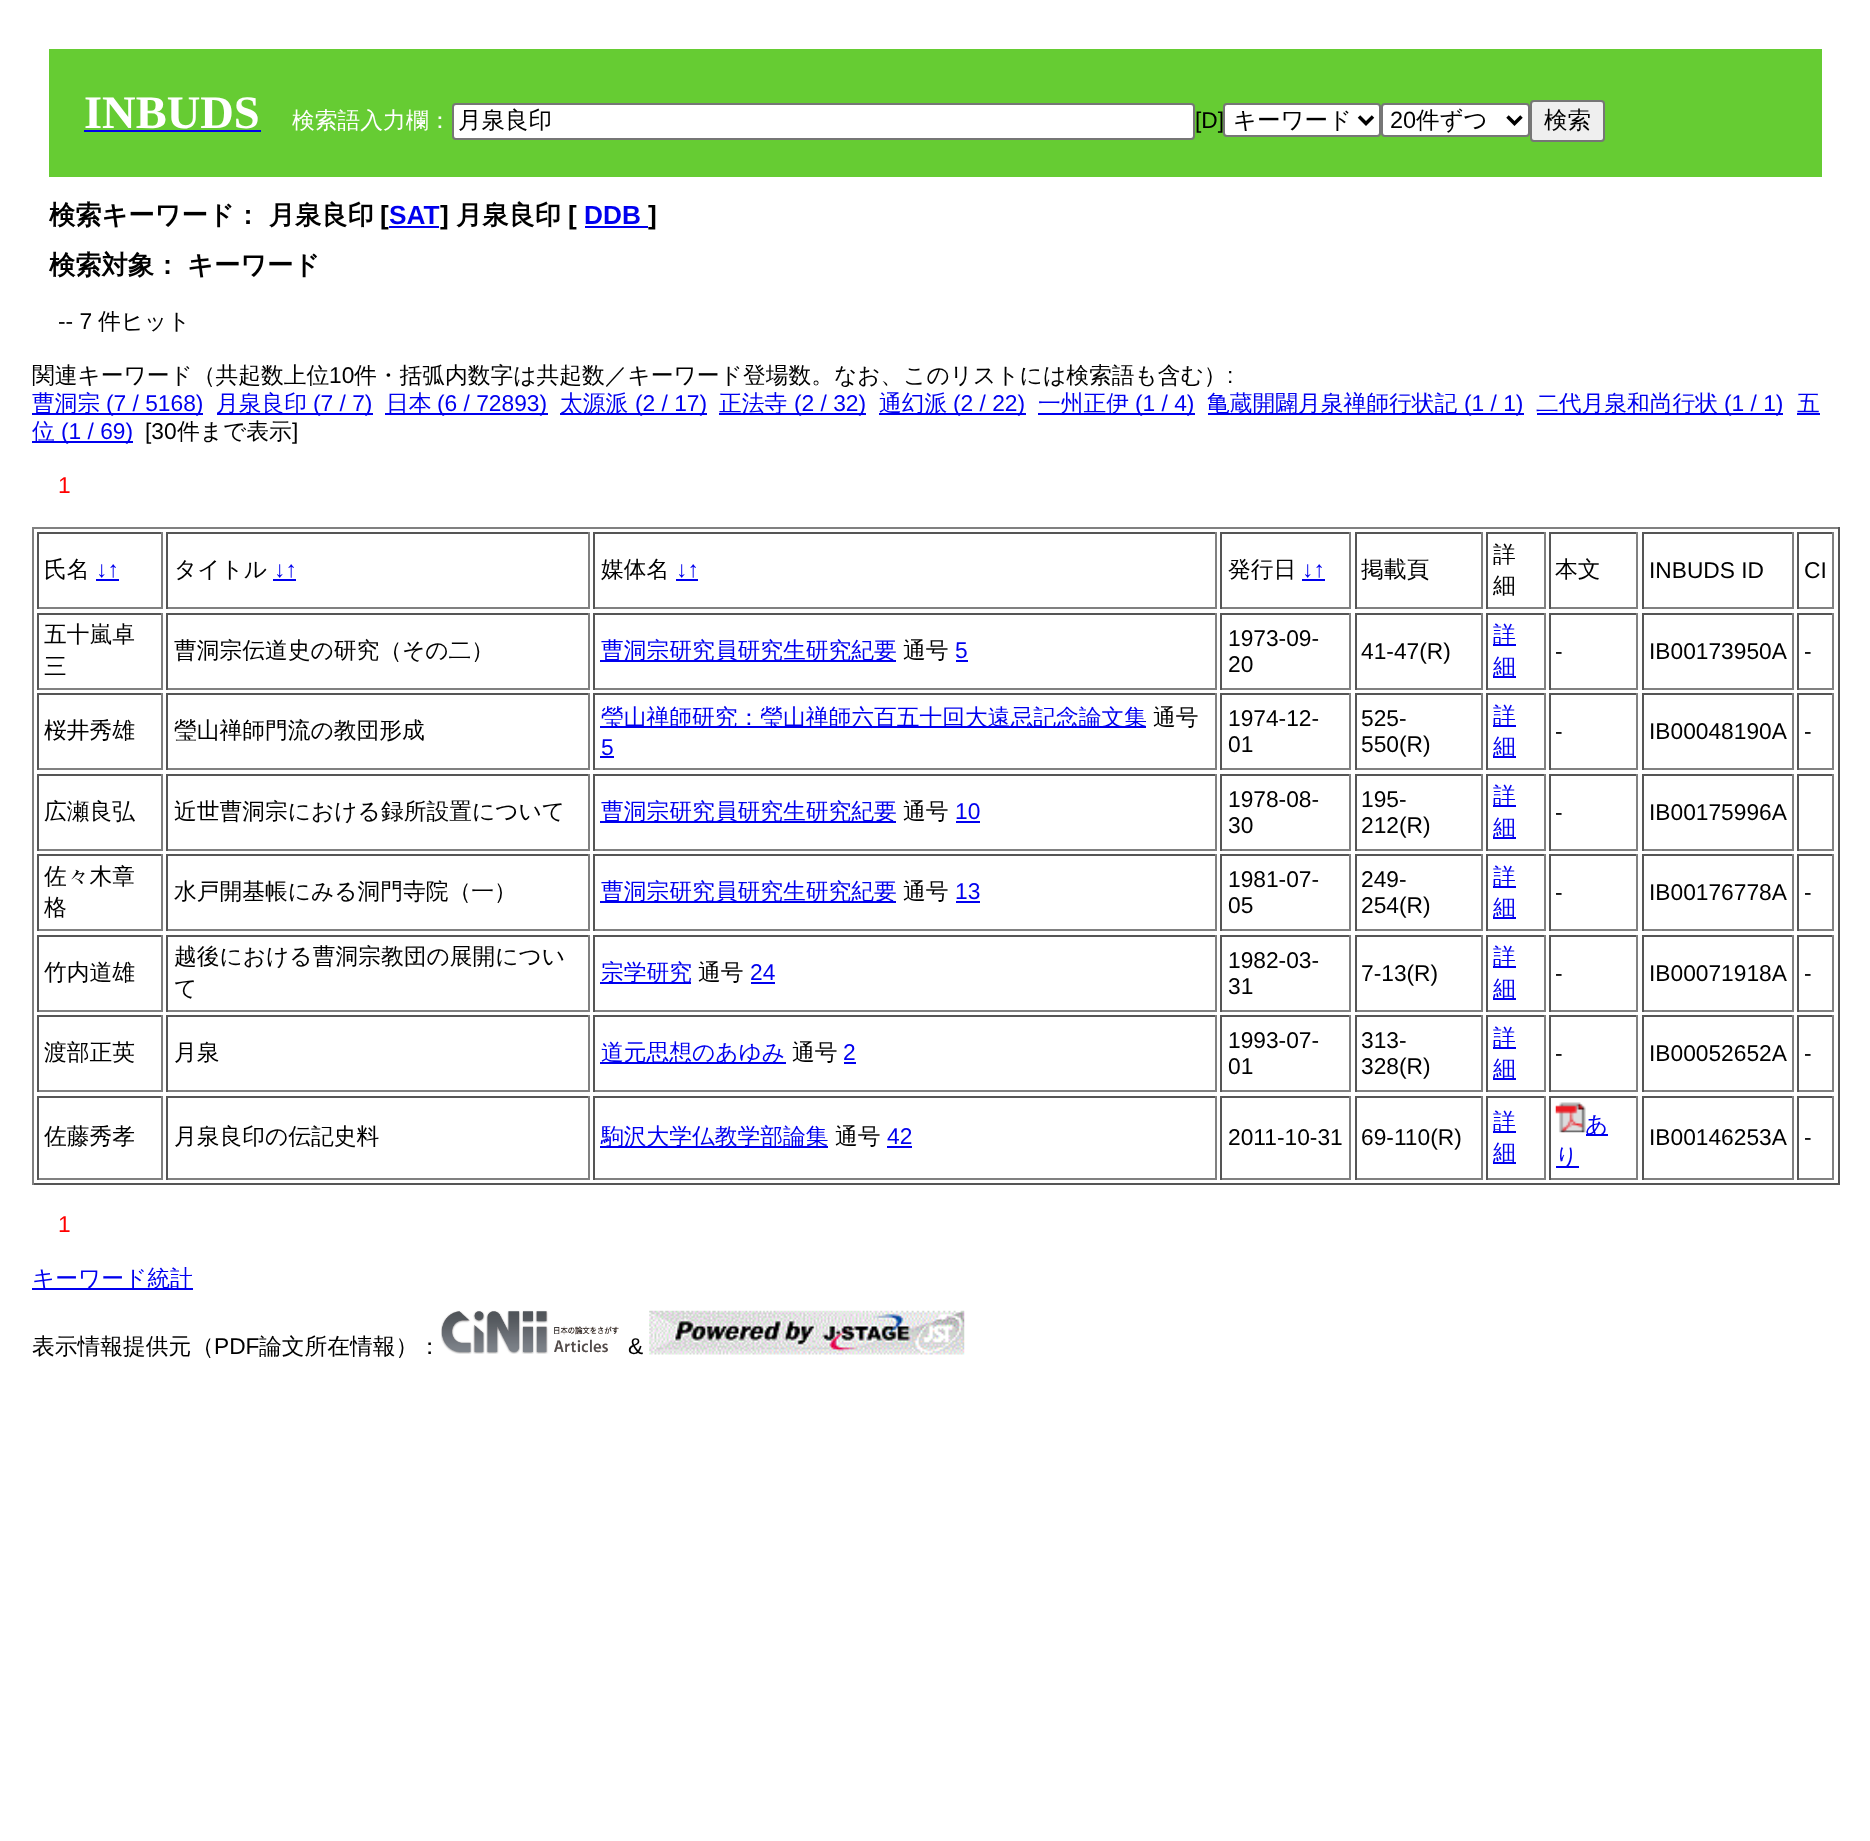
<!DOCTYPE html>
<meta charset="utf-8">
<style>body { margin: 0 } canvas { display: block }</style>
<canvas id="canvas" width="1870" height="1841"></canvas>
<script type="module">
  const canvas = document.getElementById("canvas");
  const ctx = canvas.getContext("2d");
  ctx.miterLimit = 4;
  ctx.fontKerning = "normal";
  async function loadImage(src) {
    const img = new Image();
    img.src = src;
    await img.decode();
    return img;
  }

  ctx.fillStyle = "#ffffff";
  ctx.fillRect(0, 0, 1870, 1841);
  ctx.fillStyle = "#66cc33";
  ctx.fillRect(49, 49, 1773, 128);
  ctx.font = "bold 46.5px Liberation Serif";
  ctx.fillStyle = "#ffffff";
  ctx.fillText("INBUDS", 84, 128);
  ctx.fillStyle = "#0000ee";
  ctx.fillRect(84, 130, 177, 2);
  ctx.font = "500 22.75px WenQuanYi Zen Hei";
  ctx.fillStyle = "#ffffff";
  ctx.fillText("検索語入力欄：", 292, 128);
  ctx.beginPath();
  ctx.roundRect(453, 104, 741, 35, 3);
  ctx.fill();
  ctx.strokeStyle = "#767676";
  ctx.lineWidth = 2;
  ctx.stroke();
  ctx.font = "500 23.5px WenQuanYi Zen Hei";
  ctx.fillStyle = "#000000";
  ctx.fillText("月泉良印", 458, 128);
  ctx.font = "22.75px Liberation Sans";
  ctx.fillText("[D]", 1195, 128);
  ctx.fillStyle = "#ffffff";
  ctx.beginPath();
  ctx.roundRect(1224, 104, 156, 32, 3);
  ctx.fill();
  ctx.stroke();
  ctx.beginPath();
  ctx.moveTo(1359, 116.5);
  ctx.lineTo(1366, 123.5);
  ctx.lineTo(1373, 116.5);
  ctx.strokeStyle = "#000000";
  ctx.lineWidth = 3.5;
  ctx.stroke();
  ctx.font = "500 23.5px WenQuanYi Zen Hei";
  ctx.fillStyle = "#000000";
  ctx.fillText("キーワード", 1233, 128);
  ctx.fillStyle = "#ffffff";
  ctx.beginPath();
  ctx.roundRect(1382, 104, 147, 32, 3);
  ctx.fill();
  ctx.strokeStyle = "#767676";
  ctx.lineWidth = 2;
  ctx.stroke();
  ctx.beginPath();
  ctx.moveTo(1507.5, 116.5);
  ctx.lineTo(1514.5, 123.5);
  ctx.lineTo(1521.5, 116.5);
  ctx.strokeStyle = "#000000";
  ctx.lineWidth = 3.5;
  ctx.stroke();
  ctx.font = "23.5px Liberation Sans";
  ctx.fillStyle = "#000000";
  ctx.fillText("20", 1390, 128);
  ctx.font = "500 23.5px WenQuanYi Zen Hei";
  ctx.fillText("件ずつ", 1416, 128);
  ctx.fillStyle = "#efefef";
  ctx.beginPath();
  ctx.roundRect(1531, 101, 73, 40, 3);
  ctx.fill();
  ctx.strokeStyle = "#767676";
  ctx.lineWidth = 2;
  ctx.stroke();
  ctx.fillStyle = "#000000";
  ctx.fillText("検索", 1544, 128);
  ctx.font = "bold 26.25px WenQuanYi Zen Hei";
  ctx.fillText("検索キーワード： 月泉良印", 49, 224);
  ctx.font = "bold 26.25px Liberation Sans";
  ctx.fillText("[", 380, 224);
  ctx.fillStyle = "#0000ee";
  ctx.fillText("SAT", 389, 224);
  ctx.fillRect(389, 226, 50, 2);
  ctx.fillStyle = "#000000";
  ctx.fillText("]", 440, 224);
  ctx.font = "bold 26.25px WenQuanYi Zen Hei";
  ctx.fillText("月泉良印", 456, 224);
  ctx.font = "bold 26.25px Liberation Sans";
  ctx.fillText("[", 568, 224);
  ctx.fillStyle = "#0000ee";
  ctx.fillText("DDB", 584, 224);
  ctx.fillRect(585, 226, 63, 2);
  ctx.fillStyle = "#000000";
  ctx.fillText("]", 648, 224);
  ctx.wordSpacing = "-1px";
  ctx.font = "bold 26.25px WenQuanYi Zen Hei";
  ctx.fillText("検索対象： キーワード", 49, 274);
  ctx.wordSpacing = "0px";
  ctx.font = "22.75px Liberation Sans";
  ctx.fillText("-- 7", 58, 329);
  ctx.font = "500 22.75px WenQuanYi Zen Hei";
  ctx.fillText("件ヒット", 98, 329);
  ctx.fillText("関連キーワード（共起数上位", 32, 383);
  ctx.font = "22.75px Liberation Sans";
  ctx.fillText("10", 329, 383);
  ctx.font = "500 22.75px WenQuanYi Zen Hei";
  ctx.fillText("件・括弧内数字は共起数／キーワード登場数。なお、このリストには検索語も含む）", 354, 383);
  ctx.font = "22.75px Liberation Sans";
  ctx.fillText(":", 1227, 383);
  ctx.fillStyle = "#0000ee";
  ctx.fillRect(32, 413, 171, 2);
  ctx.font = "500 22.75px WenQuanYi Zen Hei";
  ctx.fillText("曹洞宗", 32, 411);
  ctx.font = "22.75px Liberation Sans";
  ctx.fillText("(7 / 5168)", 106, 411);
  ctx.fillRect(217, 413, 156, 2);
  ctx.font = "500 22.75px WenQuanYi Zen Hei";
  ctx.fillText("月泉良印", 216, 411);
  ctx.font = "22.75px Liberation Sans";
  ctx.fillText("(7 / 7)", 313, 411);
  ctx.fillRect(385, 413, 163, 2);
  ctx.font = "500 22.75px WenQuanYi Zen Hei";
  ctx.fillText("日本", 386, 411);
  ctx.font = "22.75px Liberation Sans";
  ctx.fillText("(6 / 72893)", 437, 411);
  ctx.fillRect(560, 413, 147, 2);
  ctx.font = "500 22.75px WenQuanYi Zen Hei";
  ctx.fillText("太源派", 560, 411);
  ctx.font = "22.75px Liberation Sans";
  ctx.fillText("(2 / 17)", 635, 411);
  ctx.fillRect(719, 413, 147, 2);
  ctx.font = "500 22.75px WenQuanYi Zen Hei";
  ctx.fillText("正法寺", 719, 411);
  ctx.font = "22.75px Liberation Sans";
  ctx.fillText("(2 / 32)", 794, 411);
  ctx.fillRect(879, 413, 147, 2);
  ctx.font = "500 22.75px WenQuanYi Zen Hei";
  ctx.fillText("通幻派", 879, 411);
  ctx.font = "22.75px Liberation Sans";
  ctx.fillText("(2 / 22)", 953, 411);
  ctx.fillRect(1038, 413, 157, 2);
  ctx.font = "500 22.75px WenQuanYi Zen Hei";
  ctx.fillText("一州正伊", 1038, 411);
  ctx.font = "22.75px Liberation Sans";
  ctx.fillText("(1 / 4)", 1135, 411);
  ctx.fillRect(1208, 413, 316, 2);
  ctx.font = "500 22.75px WenQuanYi Zen Hei";
  ctx.fillText("亀蔵開闢月泉禅師行状記", 1207, 411);
  ctx.font = "22.75px Liberation Sans";
  ctx.fillText("(1 / 1)", 1464, 411);
  ctx.fillRect(1537, 413, 246, 2);
  ctx.font = "500 22.75px WenQuanYi Zen Hei";
  ctx.fillText("二代月泉和尚行状", 1536, 411);
  ctx.font = "22.75px Liberation Sans";
  ctx.fillText("(1 / 1)", 1724, 411);
  ctx.font = "500 22.75px WenQuanYi Zen Hei";
  ctx.fillText("五", 1797, 411);
  ctx.fillRect(1797, 413, 23, 2);
  ctx.fillRect(32, 441, 101, 2);
  ctx.fillText("位", 32, 439);
  ctx.font = "22.75px Liberation Sans";
  ctx.fillText("(1 / 69)", 61, 439);
  ctx.fillStyle = "#000000";
  ctx.fillText("[30", 145, 439);
  ctx.font = "500 22.75px WenQuanYi Zen Hei";
  ctx.fillText("件まで表示", 177, 439);
  ctx.font = "22.75px Liberation Sans";
  ctx.fillText("]", 292, 439);
  ctx.fillStyle = "#ff0000";
  ctx.fillText("1", 58, 493);
  ctx.fillStyle = "#808080";
  ctx.fillRect(32, 527, 1807, 2);
  ctx.fillStyle = "#555555";
  ctx.fillRect(1838, 527, 2, 658);
  ctx.fillRect(32, 1183, 1807, 2);
  ctx.fillStyle = "#808080";
  ctx.fillRect(32, 527, 2, 658);
  ctx.fillStyle = "#555555";
  ctx.fillRect(37, 532, 126, 2);
  ctx.fillStyle = "#808080";
  ctx.fillRect(161, 532, 2, 77);
  ctx.fillRect(37, 607, 126, 2);
  ctx.fillStyle = "#555555";
  ctx.fillRect(37, 532, 2, 77);
  ctx.font = "500 22.75px WenQuanYi Zen Hei";
  ctx.fillStyle = "#000000";
  ctx.fillText("氏名", 44, 577);
  ctx.font = "22.75px Liberation Sans";
  ctx.fillStyle = "#0000ee";
  ctx.fillText("↓↑", 96, 577);
  ctx.fillRect(96, 579, 23, 2);
  ctx.fillStyle = "#555555";
  ctx.fillRect(166, 532, 424, 2);
  ctx.fillStyle = "#808080";
  ctx.fillRect(588, 532, 2, 77);
  ctx.fillRect(166, 607, 424, 2);
  ctx.fillStyle = "#555555";
  ctx.fillRect(166, 532, 2, 77);
  ctx.font = "500 22.75px WenQuanYi Zen Hei";
  ctx.fillStyle = "#000000";
  ctx.fillText("タイトル", 174, 577);
  ctx.font = "22.75px Liberation Sans";
  ctx.fillStyle = "#0000ee";
  ctx.fillText("↓↑", 274, 577);
  ctx.fillRect(273, 579, 23, 2);
  ctx.fillStyle = "#555555";
  ctx.fillRect(593, 532, 623, 2);
  ctx.fillStyle = "#808080";
  ctx.fillRect(1215, 532, 2, 77);
  ctx.fillRect(593, 607, 623, 2);
  ctx.fillStyle = "#555555";
  ctx.fillRect(593, 532, 2, 77);
  ctx.font = "500 22.75px WenQuanYi Zen Hei";
  ctx.fillStyle = "#000000";
  ctx.fillText("媒体名", 601, 577);
  ctx.font = "22.75px Liberation Sans";
  ctx.fillStyle = "#0000ee";
  ctx.fillText("↓↑", 676, 577);
  ctx.fillRect(676, 579, 22, 2);
  ctx.fillStyle = "#555555";
  ctx.fillRect(1220, 532, 131, 2);
  ctx.fillStyle = "#808080";
  ctx.fillRect(1349, 532, 2, 77);
  ctx.fillRect(1220, 607, 131, 2);
  ctx.fillStyle = "#555555";
  ctx.fillRect(1220, 532, 2, 77);
  ctx.font = "500 22.75px WenQuanYi Zen Hei";
  ctx.fillStyle = "#000000";
  ctx.fillText("発行日", 1228, 577);
  ctx.font = "22.75px Liberation Sans";
  ctx.fillStyle = "#0000ee";
  ctx.fillText("↓↑", 1302, 577);
  ctx.fillRect(1302, 579, 23, 2);
  ctx.fillStyle = "#555555";
  ctx.fillRect(1355, 532, 127, 2);
  ctx.fillStyle = "#808080";
  ctx.fillRect(1481, 532, 2, 77);
  ctx.fillRect(1355, 607, 127, 2);
  ctx.fillStyle = "#555555";
  ctx.fillRect(1355, 532, 2, 77);
  ctx.font = "500 22.75px WenQuanYi Zen Hei";
  ctx.fillStyle = "#000000";
  ctx.fillText("掲載頁", 1361, 577);
  ctx.fillStyle = "#555555";
  ctx.fillRect(1486, 532, 59, 2);
  ctx.fillStyle = "#808080";
  ctx.fillRect(1544, 532, 2, 77);
  ctx.fillRect(1486, 607, 59, 2);
  ctx.fillStyle = "#555555";
  ctx.fillRect(1486, 532, 2, 77);
  ctx.fillStyle = "#000000";
  ctx.fillText("詳", 1493, 562);
  ctx.fillText("細", 1493, 593);
  ctx.fillStyle = "#555555";
  ctx.fillRect(1549, 532, 89, 2);
  ctx.fillStyle = "#808080";
  ctx.fillRect(1636, 532, 2, 77);
  ctx.fillRect(1549, 607, 89, 2);
  ctx.fillStyle = "#555555";
  ctx.fillRect(1549, 532, 2, 77);
  ctx.fillStyle = "#000000";
  ctx.fillText("本文", 1555, 577);
  ctx.fillStyle = "#555555";
  ctx.fillRect(1642, 532, 152, 2);
  ctx.fillStyle = "#808080";
  ctx.fillRect(1792, 532, 2, 77);
  ctx.fillRect(1642, 607, 152, 2);
  ctx.fillStyle = "#555555";
  ctx.fillRect(1642, 532, 2, 77);
  ctx.font = "22.75px Liberation Sans";
  ctx.fillStyle = "#000000";
  ctx.fillText("INBUDS ID", 1649, 578);
  ctx.fillStyle = "#555555";
  ctx.fillRect(1797, 532, 37, 2);
  ctx.fillStyle = "#808080";
  ctx.fillRect(1832, 532, 2, 77);
  ctx.fillRect(1797, 607, 37, 2);
  ctx.fillStyle = "#555555";
  ctx.fillRect(1797, 532, 2, 77);
  ctx.fillStyle = "#000000";
  ctx.fillText("CI", 1804, 578);
  ctx.fillStyle = "#555555";
  ctx.fillRect(37, 613, 126, 2);
  ctx.fillStyle = "#808080";
  ctx.fillRect(161, 613, 2, 77);
  ctx.fillRect(37, 688, 126, 2);
  ctx.fillStyle = "#555555";
  ctx.fillRect(37, 613, 2, 77);
  ctx.font = "500 22.75px WenQuanYi Zen Hei";
  ctx.fillStyle = "#000000";
  ctx.fillText("五十嵐卓", 44, 642);
  ctx.fillText("三", 44, 674);
  ctx.fillStyle = "#555555";
  ctx.fillRect(166, 613, 424, 2);
  ctx.fillStyle = "#808080";
  ctx.fillRect(588, 613, 2, 77);
  ctx.fillRect(166, 688, 424, 2);
  ctx.fillStyle = "#555555";
  ctx.fillRect(166, 613, 2, 77);
  ctx.fillStyle = "#000000";
  ctx.fillText("曹洞宗伝道史の研究（その二）", 174, 658);
  ctx.fillStyle = "#555555";
  ctx.fillRect(593, 613, 623, 2);
  ctx.fillStyle = "#808080";
  ctx.fillRect(1215, 613, 2, 77);
  ctx.fillRect(593, 688, 623, 2);
  ctx.fillStyle = "#555555";
  ctx.fillRect(593, 613, 2, 77);
  ctx.fillStyle = "#0000ee";
  ctx.fillRect(600, 660, 296, 2);
  ctx.fillText("曹洞宗研究員研究生研究紀要", 601, 658);
  ctx.fillStyle = "#000000";
  ctx.fillText("通号", 903, 658);
  ctx.font = "22.75px Liberation Sans";
  ctx.fillStyle = "#0000ee";
  ctx.fillText("5", 955, 658);
  ctx.fillRect(956, 660, 12, 2);
  ctx.fillStyle = "#555555";
  ctx.fillRect(1220, 613, 131, 2);
  ctx.fillStyle = "#808080";
  ctx.fillRect(1349, 613, 2, 77);
  ctx.fillRect(1220, 688, 131, 2);
  ctx.fillStyle = "#555555";
  ctx.fillRect(1220, 613, 2, 77);
  ctx.fillStyle = "#000000";
  ctx.fillText("1973-09-", 1228, 646);
  ctx.fillText("20", 1228, 672);
  ctx.fillStyle = "#555555";
  ctx.fillRect(1355, 613, 127, 2);
  ctx.fillStyle = "#808080";
  ctx.fillRect(1481, 613, 2, 77);
  ctx.fillRect(1355, 688, 127, 2);
  ctx.fillStyle = "#555555";
  ctx.fillRect(1355, 613, 2, 77);
  ctx.fillStyle = "#000000";
  ctx.fillText("41-47(R)", 1361, 659);
  ctx.fillStyle = "#555555";
  ctx.fillRect(1486, 613, 59, 2);
  ctx.fillStyle = "#808080";
  ctx.fillRect(1544, 613, 2, 77);
  ctx.fillRect(1486, 688, 59, 2);
  ctx.fillStyle = "#555555";
  ctx.fillRect(1486, 613, 2, 77);
  ctx.fillStyle = "#0000ee";
  ctx.fillRect(1493, 644, 23, 2);
  ctx.font = "500 22.75px WenQuanYi Zen Hei";
  ctx.fillText("詳", 1493, 642);
  ctx.fillRect(1493, 676, 23, 2);
  ctx.fillText("細", 1493, 674);
  ctx.fillStyle = "#555555";
  ctx.fillRect(1549, 613, 89, 2);
  ctx.fillStyle = "#808080";
  ctx.fillRect(1636, 613, 2, 77);
  ctx.fillRect(1549, 688, 89, 2);
  ctx.fillStyle = "#555555";
  ctx.fillRect(1549, 613, 2, 77);
  ctx.font = "22.75px Liberation Sans";
  ctx.fillStyle = "#000000";
  ctx.fillText("-", 1555, 659);
  ctx.fillStyle = "#555555";
  ctx.fillRect(1642, 613, 152, 2);
  ctx.fillStyle = "#808080";
  ctx.fillRect(1792, 613, 2, 77);
  ctx.fillRect(1642, 688, 152, 2);
  ctx.fillStyle = "#555555";
  ctx.fillRect(1642, 613, 2, 77);
  ctx.fillStyle = "#000000";
  ctx.fillText("IB00173950A", 1649, 659);
  ctx.fillStyle = "#555555";
  ctx.fillRect(1797, 613, 37, 2);
  ctx.fillStyle = "#808080";
  ctx.fillRect(1832, 613, 2, 77);
  ctx.fillRect(1797, 688, 37, 2);
  ctx.fillStyle = "#555555";
  ctx.fillRect(1797, 613, 2, 77);
  ctx.fillStyle = "#000000";
  ctx.fillText("-", 1804, 659);
  ctx.fillStyle = "#555555";
  ctx.fillRect(37, 693, 126, 2);
  ctx.fillStyle = "#808080";
  ctx.fillRect(161, 693, 2, 77);
  ctx.fillRect(37, 768, 126, 2);
  ctx.fillStyle = "#555555";
  ctx.fillRect(37, 693, 2, 77);
  ctx.font = "500 22.75px WenQuanYi Zen Hei";
  ctx.fillStyle = "#000000";
  ctx.fillText("桜井秀雄", 44, 738);
  ctx.fillStyle = "#555555";
  ctx.fillRect(166, 693, 424, 2);
  ctx.fillStyle = "#808080";
  ctx.fillRect(588, 693, 2, 77);
  ctx.fillRect(166, 768, 424, 2);
  ctx.fillStyle = "#555555";
  ctx.fillRect(166, 693, 2, 77);
  ctx.fillStyle = "#000000";
  ctx.fillText("瑩山禅師門流の教団形成", 174, 738);
  ctx.fillStyle = "#555555";
  ctx.fillRect(593, 693, 623, 2);
  ctx.fillStyle = "#808080";
  ctx.fillRect(1215, 693, 2, 77);
  ctx.fillRect(593, 768, 623, 2);
  ctx.fillStyle = "#555555";
  ctx.fillRect(593, 693, 2, 77);
  ctx.fillStyle = "#0000ee";
  ctx.fillRect(600, 726, 546, 2);
  ctx.fillText("瑩山禅師研究：瑩山禅師六百五十回大遠忌記念論文集", 601, 725);
  ctx.fillStyle = "#000000";
  ctx.fillText("通号", 1153, 725);
  ctx.font = "22.75px Liberation Sans";
  ctx.fillStyle = "#0000ee";
  ctx.fillText("5", 601, 755);
  ctx.fillRect(600, 756, 14, 2);
  ctx.fillStyle = "#555555";
  ctx.fillRect(1220, 693, 131, 2);
  ctx.fillStyle = "#808080";
  ctx.fillRect(1349, 693, 2, 77);
  ctx.fillRect(1220, 768, 131, 2);
  ctx.fillStyle = "#555555";
  ctx.fillRect(1220, 693, 2, 77);
  ctx.fillStyle = "#000000";
  ctx.fillText("1974-12-", 1228, 726);
  ctx.fillText("01", 1228, 752);
  ctx.fillStyle = "#555555";
  ctx.fillRect(1355, 693, 127, 2);
  ctx.fillStyle = "#808080";
  ctx.fillRect(1481, 693, 2, 77);
  ctx.fillRect(1355, 768, 127, 2);
  ctx.fillStyle = "#555555";
  ctx.fillRect(1355, 693, 2, 77);
  ctx.fillStyle = "#000000";
  ctx.fillText("525-", 1361, 726);
  ctx.fillText("550(R)", 1361, 752);
  ctx.fillStyle = "#555555";
  ctx.fillRect(1486, 693, 59, 2);
  ctx.fillStyle = "#808080";
  ctx.fillRect(1544, 693, 2, 77);
  ctx.fillRect(1486, 768, 59, 2);
  ctx.fillStyle = "#555555";
  ctx.fillRect(1486, 693, 2, 77);
  ctx.fillStyle = "#0000ee";
  ctx.fillRect(1493, 725, 23, 2);
  ctx.font = "500 22.75px WenQuanYi Zen Hei";
  ctx.fillText("詳", 1493, 723);
  ctx.fillRect(1493, 756, 23, 2);
  ctx.fillText("細", 1493, 754);
  ctx.fillStyle = "#555555";
  ctx.fillRect(1549, 693, 89, 2);
  ctx.fillStyle = "#808080";
  ctx.fillRect(1636, 693, 2, 77);
  ctx.fillRect(1549, 768, 89, 2);
  ctx.fillStyle = "#555555";
  ctx.fillRect(1549, 693, 2, 77);
  ctx.font = "22.75px Liberation Sans";
  ctx.fillStyle = "#000000";
  ctx.fillText("-", 1555, 739);
  ctx.fillStyle = "#555555";
  ctx.fillRect(1642, 693, 152, 2);
  ctx.fillStyle = "#808080";
  ctx.fillRect(1792, 693, 2, 77);
  ctx.fillRect(1642, 768, 152, 2);
  ctx.fillStyle = "#555555";
  ctx.fillRect(1642, 693, 2, 77);
  ctx.fillStyle = "#000000";
  ctx.fillText("IB00048190A", 1649, 739);
  ctx.fillStyle = "#555555";
  ctx.fillRect(1797, 693, 37, 2);
  ctx.fillStyle = "#808080";
  ctx.fillRect(1832, 693, 2, 77);
  ctx.fillRect(1797, 768, 37, 2);
  ctx.fillStyle = "#555555";
  ctx.fillRect(1797, 693, 2, 77);
  ctx.fillStyle = "#000000";
  ctx.fillText("-", 1804, 739);
  ctx.fillStyle = "#555555";
  ctx.fillRect(37, 774, 126, 2);
  ctx.fillStyle = "#808080";
  ctx.fillRect(161, 774, 2, 77);
  ctx.fillRect(37, 849, 126, 2);
  ctx.fillStyle = "#555555";
  ctx.fillRect(37, 774, 2, 77);
  ctx.font = "500 22.75px WenQuanYi Zen Hei";
  ctx.fillStyle = "#000000";
  ctx.fillText("広瀬良弘", 44, 819);
  ctx.fillStyle = "#555555";
  ctx.fillRect(166, 774, 424, 2);
  ctx.fillStyle = "#808080";
  ctx.fillRect(588, 774, 2, 77);
  ctx.fillRect(166, 849, 424, 2);
  ctx.fillStyle = "#555555";
  ctx.fillRect(166, 774, 2, 77);
  ctx.fillStyle = "#000000";
  ctx.fillText("近世曹洞宗における録所設置について", 174, 819);
  ctx.fillStyle = "#555555";
  ctx.fillRect(593, 774, 623, 2);
  ctx.fillStyle = "#808080";
  ctx.fillRect(1215, 774, 2, 77);
  ctx.fillRect(593, 849, 623, 2);
  ctx.fillStyle = "#555555";
  ctx.fillRect(593, 774, 2, 77);
  ctx.fillStyle = "#0000ee";
  ctx.fillRect(600, 821, 296, 2);
  ctx.fillText("曹洞宗研究員研究生研究紀要", 601, 819);
  ctx.fillStyle = "#000000";
  ctx.fillText("通号", 903, 819);
  ctx.font = "22.75px Liberation Sans";
  ctx.fillStyle = "#0000ee";
  ctx.fillText("10", 955, 819);
  ctx.fillRect(956, 821, 24, 2);
  ctx.fillStyle = "#555555";
  ctx.fillRect(1220, 774, 131, 2);
  ctx.fillStyle = "#808080";
  ctx.fillRect(1349, 774, 2, 77);
  ctx.fillRect(1220, 849, 131, 2);
  ctx.fillStyle = "#555555";
  ctx.fillRect(1220, 774, 2, 77);
  ctx.fillStyle = "#000000";
  ctx.fillText("1978-08-", 1228, 807);
  ctx.fillText("30", 1228, 833);
  ctx.fillStyle = "#555555";
  ctx.fillRect(1355, 774, 127, 2);
  ctx.fillStyle = "#808080";
  ctx.fillRect(1481, 774, 2, 77);
  ctx.fillRect(1355, 849, 127, 2);
  ctx.fillStyle = "#555555";
  ctx.fillRect(1355, 774, 2, 77);
  ctx.fillStyle = "#000000";
  ctx.fillText("195-", 1361, 807);
  ctx.fillText("212(R)", 1361, 833);
  ctx.fillStyle = "#555555";
  ctx.fillRect(1486, 774, 59, 2);
  ctx.fillStyle = "#808080";
  ctx.fillRect(1544, 774, 2, 77);
  ctx.fillRect(1486, 849, 59, 2);
  ctx.fillStyle = "#555555";
  ctx.fillRect(1486, 774, 2, 77);
  ctx.fillStyle = "#0000ee";
  ctx.fillRect(1493, 805, 23, 2);
  ctx.font = "500 22.75px WenQuanYi Zen Hei";
  ctx.fillText("詳", 1493, 803);
  ctx.fillRect(1493, 837, 23, 2);
  ctx.fillText("細", 1493, 835);
  ctx.fillStyle = "#555555";
  ctx.fillRect(1549, 774, 89, 2);
  ctx.fillStyle = "#808080";
  ctx.fillRect(1636, 774, 2, 77);
  ctx.fillRect(1549, 849, 89, 2);
  ctx.fillStyle = "#555555";
  ctx.fillRect(1549, 774, 2, 77);
  ctx.font = "22.75px Liberation Sans";
  ctx.fillStyle = "#000000";
  ctx.fillText("-", 1555, 820);
  ctx.fillStyle = "#555555";
  ctx.fillRect(1642, 774, 152, 2);
  ctx.fillStyle = "#808080";
  ctx.fillRect(1792, 774, 2, 77);
  ctx.fillRect(1642, 849, 152, 2);
  ctx.fillStyle = "#555555";
  ctx.fillRect(1642, 774, 2, 77);
  ctx.fillStyle = "#000000";
  ctx.fillText("IB00175996A", 1649, 820);
  ctx.fillStyle = "#555555";
  ctx.fillRect(1797, 774, 37, 2);
  ctx.fillStyle = "#808080";
  ctx.fillRect(1832, 774, 2, 77);
  ctx.fillRect(1797, 849, 37, 2);
  ctx.fillStyle = "#555555";
  ctx.fillRect(1797, 774, 2, 77);
  ctx.fillRect(37, 854, 126, 2);
  ctx.fillStyle = "#808080";
  ctx.fillRect(161, 854, 2, 77);
  ctx.fillRect(37, 929, 126, 2);
  ctx.fillStyle = "#555555";
  ctx.fillRect(37, 854, 2, 77);
  ctx.font = "500 22.75px WenQuanYi Zen Hei";
  ctx.fillStyle = "#000000";
  ctx.fillText("佐々木章", 44, 884);
  ctx.fillText("格", 44, 915);
  ctx.fillStyle = "#555555";
  ctx.fillRect(166, 854, 424, 2);
  ctx.fillStyle = "#808080";
  ctx.fillRect(588, 854, 2, 77);
  ctx.fillRect(166, 929, 424, 2);
  ctx.fillStyle = "#555555";
  ctx.fillRect(166, 854, 2, 77);
  ctx.fillStyle = "#000000";
  ctx.fillText("水戸開基帳にみる洞門寺院（一）", 174, 899);
  ctx.fillStyle = "#555555";
  ctx.fillRect(593, 854, 623, 2);
  ctx.fillStyle = "#808080";
  ctx.fillRect(1215, 854, 2, 77);
  ctx.fillRect(593, 929, 623, 2);
  ctx.fillStyle = "#555555";
  ctx.fillRect(593, 854, 2, 77);
  ctx.fillStyle = "#0000ee";
  ctx.fillRect(600, 901, 296, 2);
  ctx.fillText("曹洞宗研究員研究生研究紀要", 601, 899);
  ctx.fillStyle = "#000000";
  ctx.fillText("通号", 903, 899);
  ctx.font = "22.75px Liberation Sans";
  ctx.fillStyle = "#0000ee";
  ctx.fillText("13", 955, 899);
  ctx.fillRect(956, 901, 24, 2);
  ctx.fillStyle = "#555555";
  ctx.fillRect(1220, 854, 131, 2);
  ctx.fillStyle = "#808080";
  ctx.fillRect(1349, 854, 2, 77);
  ctx.fillRect(1220, 929, 131, 2);
  ctx.fillStyle = "#555555";
  ctx.fillRect(1220, 854, 2, 77);
  ctx.fillStyle = "#000000";
  ctx.fillText("1981-07-", 1228, 887);
  ctx.fillText("05", 1228, 913);
  ctx.fillStyle = "#555555";
  ctx.fillRect(1355, 854, 127, 2);
  ctx.fillStyle = "#808080";
  ctx.fillRect(1481, 854, 2, 77);
  ctx.fillRect(1355, 929, 127, 2);
  ctx.fillStyle = "#555555";
  ctx.fillRect(1355, 854, 2, 77);
  ctx.fillStyle = "#000000";
  ctx.fillText("249-", 1361, 887);
  ctx.fillText("254(R)", 1361, 913);
  ctx.fillStyle = "#555555";
  ctx.fillRect(1486, 854, 59, 2);
  ctx.fillStyle = "#808080";
  ctx.fillRect(1544, 854, 2, 77);
  ctx.fillRect(1486, 929, 59, 2);
  ctx.fillStyle = "#555555";
  ctx.fillRect(1486, 854, 2, 77);
  ctx.fillStyle = "#0000ee";
  ctx.fillRect(1493, 886, 23, 2);
  ctx.font = "500 22.75px WenQuanYi Zen Hei";
  ctx.fillText("詳", 1493, 884);
  ctx.fillRect(1493, 917, 23, 2);
  ctx.fillText("細", 1493, 915);
  ctx.fillStyle = "#555555";
  ctx.fillRect(1549, 854, 89, 2);
  ctx.fillStyle = "#808080";
  ctx.fillRect(1636, 854, 2, 77);
  ctx.fillRect(1549, 929, 89, 2);
  ctx.fillStyle = "#555555";
  ctx.fillRect(1549, 854, 2, 77);
  ctx.font = "22.75px Liberation Sans";
  ctx.fillStyle = "#000000";
  ctx.fillText("-", 1555, 900);
  ctx.fillStyle = "#555555";
  ctx.fillRect(1642, 854, 152, 2);
  ctx.fillStyle = "#808080";
  ctx.fillRect(1792, 854, 2, 77);
  ctx.fillRect(1642, 929, 152, 2);
  ctx.fillStyle = "#555555";
  ctx.fillRect(1642, 854, 2, 77);
  ctx.fillStyle = "#000000";
  ctx.fillText("IB00176778A", 1649, 900);
  ctx.fillStyle = "#555555";
  ctx.fillRect(1797, 854, 37, 2);
  ctx.fillStyle = "#808080";
  ctx.fillRect(1832, 854, 2, 77);
  ctx.fillRect(1797, 929, 37, 2);
  ctx.fillStyle = "#555555";
  ctx.fillRect(1797, 854, 2, 77);
  ctx.fillStyle = "#000000";
  ctx.fillText("-", 1804, 900);
  ctx.fillStyle = "#555555";
  ctx.fillRect(37, 935, 126, 2);
  ctx.fillStyle = "#808080";
  ctx.fillRect(161, 935, 2, 77);
  ctx.fillRect(37, 1010, 126, 2);
  ctx.fillStyle = "#555555";
  ctx.fillRect(37, 935, 2, 77);
  ctx.font = "500 22.75px WenQuanYi Zen Hei";
  ctx.fillStyle = "#000000";
  ctx.fillText("竹内道雄", 44, 980);
  ctx.fillStyle = "#555555";
  ctx.fillRect(166, 935, 424, 2);
  ctx.fillStyle = "#808080";
  ctx.fillRect(588, 935, 2, 77);
  ctx.fillRect(166, 1010, 424, 2);
  ctx.fillStyle = "#555555";
  ctx.fillRect(166, 935, 2, 77);
  ctx.fillStyle = "#000000";
  ctx.fillText("越後における曹洞宗教団の展開につい", 174, 964);
  ctx.fillText("て", 174, 996);
  ctx.fillStyle = "#555555";
  ctx.fillRect(593, 935, 623, 2);
  ctx.fillStyle = "#808080";
  ctx.fillRect(1215, 935, 2, 77);
  ctx.fillRect(593, 1010, 623, 2);
  ctx.fillStyle = "#555555";
  ctx.fillRect(593, 935, 2, 77);
  ctx.fillStyle = "#0000ee";
  ctx.fillRect(600, 982, 91, 2);
  ctx.fillText("宗学研究", 601, 980);
  ctx.fillStyle = "#000000";
  ctx.fillText("通号", 698, 980);
  ctx.font = "22.75px Liberation Sans";
  ctx.fillStyle = "#0000ee";
  ctx.fillText("24", 750, 980);
  ctx.fillRect(751, 982, 24, 2);
  ctx.fillStyle = "#555555";
  ctx.fillRect(1220, 935, 131, 2);
  ctx.fillStyle = "#808080";
  ctx.fillRect(1349, 935, 2, 77);
  ctx.fillRect(1220, 1010, 131, 2);
  ctx.fillStyle = "#555555";
  ctx.fillRect(1220, 935, 2, 77);
  ctx.fillStyle = "#000000";
  ctx.fillText("1982-03-", 1228, 968);
  ctx.fillText("31", 1228, 994);
  ctx.fillStyle = "#555555";
  ctx.fillRect(1355, 935, 127, 2);
  ctx.fillStyle = "#808080";
  ctx.fillRect(1481, 935, 2, 77);
  ctx.fillRect(1355, 1010, 127, 2);
  ctx.fillStyle = "#555555";
  ctx.fillRect(1355, 935, 2, 77);
  ctx.fillStyle = "#000000";
  ctx.fillText("7-13(R)", 1361, 981);
  ctx.fillStyle = "#555555";
  ctx.fillRect(1486, 935, 59, 2);
  ctx.fillStyle = "#808080";
  ctx.fillRect(1544, 935, 2, 77);
  ctx.fillRect(1486, 1010, 59, 2);
  ctx.fillStyle = "#555555";
  ctx.fillRect(1486, 935, 2, 77);
  ctx.fillStyle = "#0000ee";
  ctx.fillRect(1493, 966, 23, 2);
  ctx.font = "500 22.75px WenQuanYi Zen Hei";
  ctx.fillText("詳", 1493, 964);
  ctx.fillRect(1493, 998, 23, 2);
  ctx.fillText("細", 1493, 996);
  ctx.fillStyle = "#555555";
  ctx.fillRect(1549, 935, 89, 2);
  ctx.fillStyle = "#808080";
  ctx.fillRect(1636, 935, 2, 77);
  ctx.fillRect(1549, 1010, 89, 2);
  ctx.fillStyle = "#555555";
  ctx.fillRect(1549, 935, 2, 77);
  ctx.font = "22.75px Liberation Sans";
  ctx.fillStyle = "#000000";
  ctx.fillText("-", 1555, 981);
  ctx.fillStyle = "#555555";
  ctx.fillRect(1642, 935, 152, 2);
  ctx.fillStyle = "#808080";
  ctx.fillRect(1792, 935, 2, 77);
  ctx.fillRect(1642, 1010, 152, 2);
  ctx.fillStyle = "#555555";
  ctx.fillRect(1642, 935, 2, 77);
  ctx.fillStyle = "#000000";
  ctx.fillText("IB00071918A", 1649, 981);
  ctx.fillStyle = "#555555";
  ctx.fillRect(1797, 935, 37, 2);
  ctx.fillStyle = "#808080";
  ctx.fillRect(1832, 935, 2, 77);
  ctx.fillRect(1797, 1010, 37, 2);
  ctx.fillStyle = "#555555";
  ctx.fillRect(1797, 935, 2, 77);
  ctx.fillStyle = "#000000";
  ctx.fillText("-", 1804, 981);
  ctx.fillStyle = "#555555";
  ctx.fillRect(37, 1015, 126, 2);
  ctx.fillStyle = "#808080";
  ctx.fillRect(161, 1015, 2, 77);
  ctx.fillRect(37, 1090, 126, 2);
  ctx.fillStyle = "#555555";
  ctx.fillRect(37, 1015, 2, 77);
  ctx.font = "500 22.75px WenQuanYi Zen Hei";
  ctx.fillStyle = "#000000";
  ctx.fillText("渡部正英", 44, 1060);
  ctx.fillStyle = "#555555";
  ctx.fillRect(166, 1015, 424, 2);
  ctx.fillStyle = "#808080";
  ctx.fillRect(588, 1015, 2, 77);
  ctx.fillRect(166, 1090, 424, 2);
  ctx.fillStyle = "#555555";
  ctx.fillRect(166, 1015, 2, 77);
  ctx.fillStyle = "#000000";
  ctx.fillText("月泉", 174, 1060);
  ctx.fillStyle = "#555555";
  ctx.fillRect(593, 1015, 623, 2);
  ctx.fillStyle = "#808080";
  ctx.fillRect(1215, 1015, 2, 77);
  ctx.fillRect(593, 1090, 623, 2);
  ctx.fillStyle = "#555555";
  ctx.fillRect(593, 1015, 2, 77);
  ctx.fillStyle = "#0000ee";
  ctx.fillRect(600, 1062, 186, 2);
  ctx.fillText("道元思想のあゆみ", 601, 1060);
  ctx.fillStyle = "#000000";
  ctx.fillText("通号", 792, 1060);
  ctx.font = "22.75px Liberation Sans";
  ctx.fillStyle = "#0000ee";
  ctx.fillText("2", 843, 1060);
  ctx.fillRect(844, 1062, 12, 2);
  ctx.fillStyle = "#555555";
  ctx.fillRect(1220, 1015, 131, 2);
  ctx.fillStyle = "#808080";
  ctx.fillRect(1349, 1015, 2, 77);
  ctx.fillRect(1220, 1090, 131, 2);
  ctx.fillStyle = "#555555";
  ctx.fillRect(1220, 1015, 2, 77);
  ctx.fillStyle = "#000000";
  ctx.fillText("1993-07-", 1228, 1048);
  ctx.fillText("01", 1228, 1074);
  ctx.fillStyle = "#555555";
  ctx.fillRect(1355, 1015, 127, 2);
  ctx.fillStyle = "#808080";
  ctx.fillRect(1481, 1015, 2, 77);
  ctx.fillRect(1355, 1090, 127, 2);
  ctx.fillStyle = "#555555";
  ctx.fillRect(1355, 1015, 2, 77);
  ctx.fillStyle = "#000000";
  ctx.fillText("313-", 1361, 1048);
  ctx.fillText("328(R)", 1361, 1074);
  ctx.fillStyle = "#555555";
  ctx.fillRect(1486, 1015, 59, 2);
  ctx.fillStyle = "#808080";
  ctx.fillRect(1544, 1015, 2, 77);
  ctx.fillRect(1486, 1090, 59, 2);
  ctx.fillStyle = "#555555";
  ctx.fillRect(1486, 1015, 2, 77);
  ctx.fillStyle = "#0000ee";
  ctx.fillRect(1493, 1047, 23, 2);
  ctx.font = "500 22.75px WenQuanYi Zen Hei";
  ctx.fillText("詳", 1493, 1045);
  ctx.fillRect(1493, 1078, 23, 2);
  ctx.fillText("細", 1493, 1076);
  ctx.fillStyle = "#555555";
  ctx.fillRect(1549, 1015, 89, 2);
  ctx.fillStyle = "#808080";
  ctx.fillRect(1636, 1015, 2, 77);
  ctx.fillRect(1549, 1090, 89, 2);
  ctx.fillStyle = "#555555";
  ctx.fillRect(1549, 1015, 2, 77);
  ctx.font = "22.75px Liberation Sans";
  ctx.fillStyle = "#000000";
  ctx.fillText("-", 1555, 1061);
  ctx.fillStyle = "#555555";
  ctx.fillRect(1642, 1015, 152, 2);
  ctx.fillStyle = "#808080";
  ctx.fillRect(1792, 1015, 2, 77);
  ctx.fillRect(1642, 1090, 152, 2);
  ctx.fillStyle = "#555555";
  ctx.fillRect(1642, 1015, 2, 77);
  ctx.fillStyle = "#000000";
  ctx.fillText("IB00052652A", 1649, 1061);
  ctx.fillStyle = "#555555";
  ctx.fillRect(1797, 1015, 37, 2);
  ctx.fillStyle = "#808080";
  ctx.fillRect(1832, 1015, 2, 77);
  ctx.fillRect(1797, 1090, 37, 2);
  ctx.fillStyle = "#555555";
  ctx.fillRect(1797, 1015, 2, 77);
  ctx.fillStyle = "#000000";
  ctx.fillText("-", 1804, 1061);
  ctx.fillStyle = "#555555";
  ctx.fillRect(37, 1096, 126, 2);
  ctx.fillStyle = "#808080";
  ctx.fillRect(161, 1096, 2, 84);
  ctx.fillRect(37, 1178, 126, 2);
  ctx.fillStyle = "#555555";
  ctx.fillRect(37, 1096, 2, 84);
  ctx.font = "500 22.75px WenQuanYi Zen Hei";
  ctx.fillStyle = "#000000";
  ctx.fillText("佐藤秀孝", 44, 1144);
  ctx.fillStyle = "#555555";
  ctx.fillRect(166, 1096, 424, 2);
  ctx.fillStyle = "#808080";
  ctx.fillRect(588, 1096, 2, 84);
  ctx.fillRect(166, 1178, 424, 2);
  ctx.fillStyle = "#555555";
  ctx.fillRect(166, 1096, 2, 84);
  ctx.fillStyle = "#000000";
  ctx.fillText("月泉良印の伝記史料", 174, 1144);
  ctx.fillStyle = "#555555";
  ctx.fillRect(593, 1096, 623, 2);
  ctx.fillStyle = "#808080";
  ctx.fillRect(1215, 1096, 2, 84);
  ctx.fillRect(593, 1178, 623, 2);
  ctx.fillStyle = "#555555";
  ctx.fillRect(593, 1096, 2, 84);
  ctx.fillStyle = "#0000ee";
  ctx.fillRect(600, 1146, 228, 2);
  ctx.fillText("駒沢大学仏教学部論集", 601, 1144);
  ctx.fillStyle = "#000000";
  ctx.fillText("通号", 835, 1144);
  ctx.font = "22.75px Liberation Sans";
  ctx.fillStyle = "#0000ee";
  ctx.fillText("42", 887, 1144);
  ctx.fillRect(887, 1146, 25, 2);
  ctx.fillStyle = "#555555";
  ctx.fillRect(1220, 1096, 131, 2);
  ctx.fillStyle = "#808080";
  ctx.fillRect(1349, 1096, 2, 84);
  ctx.fillRect(1220, 1178, 131, 2);
  ctx.fillStyle = "#555555";
  ctx.fillRect(1220, 1096, 2, 84);
  ctx.fillStyle = "#000000";
  ctx.fillText("2011-10-31", 1228, 1145);
  ctx.fillStyle = "#555555";
  ctx.fillRect(1355, 1096, 127, 2);
  ctx.fillStyle = "#808080";
  ctx.fillRect(1481, 1096, 2, 84);
  ctx.fillRect(1355, 1178, 127, 2);
  ctx.fillStyle = "#555555";
  ctx.fillRect(1355, 1096, 2, 84);
  ctx.fillStyle = "#000000";
  ctx.fillText("69-110(R)", 1361, 1145);
  ctx.fillStyle = "#555555";
  ctx.fillRect(1486, 1096, 59, 2);
  ctx.fillStyle = "#808080";
  ctx.fillRect(1544, 1096, 2, 84);
  ctx.fillRect(1486, 1178, 59, 2);
  ctx.fillStyle = "#555555";
  ctx.fillRect(1486, 1096, 2, 84);
  ctx.fillStyle = "#0000ee";
  ctx.fillRect(1493, 1131, 23, 2);
  ctx.font = "500 22.75px WenQuanYi Zen Hei";
  ctx.fillText("詳", 1493, 1129);
  ctx.fillRect(1493, 1162, 23, 2);
  ctx.fillText("細", 1493, 1160);
  ctx.fillStyle = "#555555";
  ctx.fillRect(1549, 1096, 89, 2);
  ctx.fillStyle = "#808080";
  ctx.fillRect(1636, 1096, 2, 84);
  ctx.fillRect(1549, 1178, 89, 2);
  ctx.fillStyle = "#555555";
  ctx.fillRect(1549, 1096, 2, 84);
  ctx.drawImage(await loadImage("img1.png"), 1555, 1102, 31, 31);
  ctx.fillStyle = "#0000ee";
  ctx.fillRect(1586, 1134, 22, 2);
  ctx.fillText("あ", 1585, 1132);
  ctx.fillRect(1556, 1166, 23, 2);
  ctx.fillText("り", 1555, 1164);
  ctx.fillStyle = "#555555";
  ctx.fillRect(1642, 1096, 152, 2);
  ctx.fillStyle = "#808080";
  ctx.fillRect(1792, 1096, 2, 84);
  ctx.fillRect(1642, 1178, 152, 2);
  ctx.fillStyle = "#555555";
  ctx.fillRect(1642, 1096, 2, 84);
  ctx.font = "22.75px Liberation Sans";
  ctx.fillStyle = "#000000";
  ctx.fillText("IB00146253A", 1649, 1145);
  ctx.fillStyle = "#555555";
  ctx.fillRect(1797, 1096, 37, 2);
  ctx.fillStyle = "#808080";
  ctx.fillRect(1832, 1096, 2, 84);
  ctx.fillRect(1797, 1178, 37, 2);
  ctx.fillStyle = "#555555";
  ctx.fillRect(1797, 1096, 2, 84);
  ctx.fillStyle = "#000000";
  ctx.fillText("-", 1804, 1145);
  ctx.fillStyle = "#ff0000";
  ctx.fillText("1", 58, 1232);
  ctx.fillStyle = "#0000ee";
  ctx.fillRect(32, 1288, 161, 2);
  ctx.font = "500 22.75px WenQuanYi Zen Hei";
  ctx.fillText("キーワード統計", 32, 1286);
  ctx.fillStyle = "#000000";
  ctx.fillText("表示情報提供元（", 32, 1354);
  ctx.font = "22.75px Liberation Sans";
  ctx.fillText("PDF", 214, 1354);
  ctx.font = "500 22.75px WenQuanYi Zen Hei";
  ctx.fillText("論文所在情報）：", 259, 1354);
  ctx.drawImage(await loadImage("img2.png"), 441, 1310, 178, 44);
  ctx.font = "22.75px Liberation Sans";
  ctx.fillText("&", 628, 1354);
  ctx.drawImage(await loadImage("img3.png"), 649, 1310, 316, 45);
</script>
